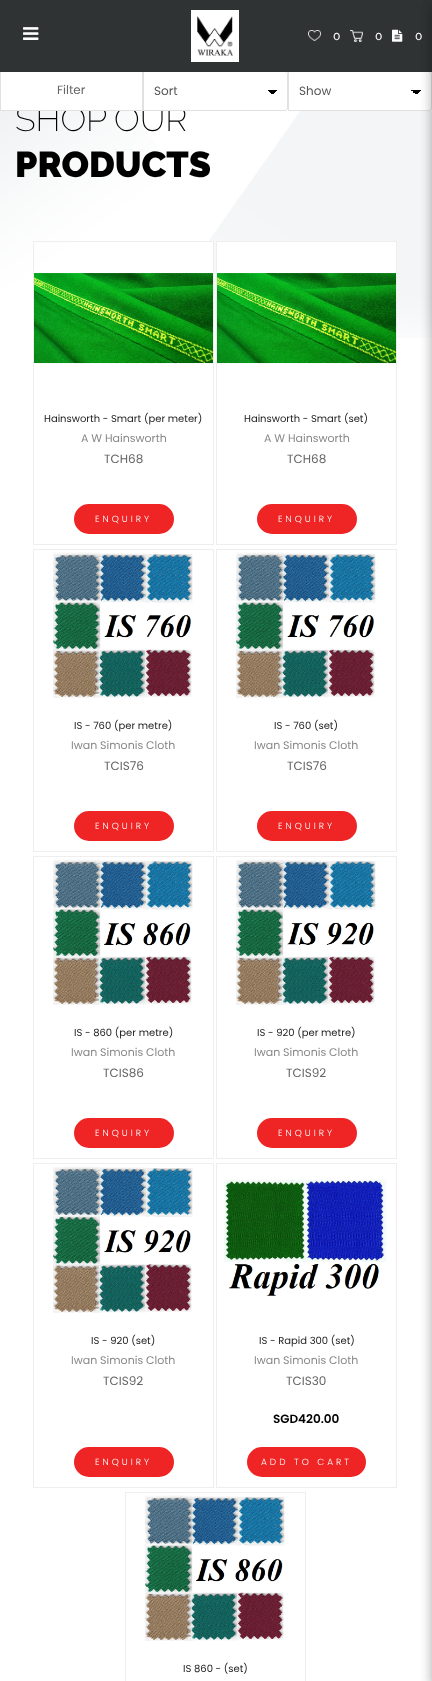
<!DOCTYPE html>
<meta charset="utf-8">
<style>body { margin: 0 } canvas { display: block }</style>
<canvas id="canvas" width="432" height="1681"></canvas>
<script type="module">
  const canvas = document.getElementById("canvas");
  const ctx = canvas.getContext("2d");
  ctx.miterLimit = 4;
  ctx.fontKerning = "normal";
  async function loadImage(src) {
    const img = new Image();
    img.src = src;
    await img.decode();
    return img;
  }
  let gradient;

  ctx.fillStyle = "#ffffff";
  ctx.fillRect(0, 0, 432, 1681);
  ctx.drawImage(await loadImage("img12.png"), 0, 111, 432, 227);
  ctx.font = "200 34px Raleway";
  ctx.fillStyle = "#000000";
  ctx.fillText("SHOP", 15, 131);
  ctx.fillText("OUR", 114, 131);
  ctx.fillStyle = "#ffffff";
  ctx.fillRect(17, 106, 168, 5);
  ctx.strokeStyle = "#e1e1e1";
  ctx.strokeRect(0.5, 71.5, 142, 39);
  gradient = ctx.createLinearGradient(272, 90, 277, 95);
  gradient.addColorStop(0.5, "#000000");
  gradient.addColorStop(0.5, "#ffffff");
  ctx.fillStyle = gradient;
  ctx.fillRect(272, 90, 5, 4);
  gradient = ctx.createLinearGradient(267, 95, 272, 90);
  gradient.addColorStop(0.5, "#ffffff");
  gradient.addColorStop(0.5, "#000000");
  ctx.fillStyle = gradient;
  ctx.fillRect(267, 90, 5, 4);
  ctx.beginPath();
  ctx.roundRect(143.5, 71.5, 144, 39, [0, 2.5, 2.5, 0]);
  ctx.stroke();
  gradient = ctx.createLinearGradient(416, 90, 421, 95);
  gradient.addColorStop(0.5, "#000000");
  gradient.addColorStop(0.5, "#ffffff");
  ctx.fillStyle = gradient;
  ctx.fillRect(416, 90, 5, 4);
  gradient = ctx.createLinearGradient(411, 95, 416, 90);
  gradient.addColorStop(0.5, "#ffffff");
  gradient.addColorStop(0.5, "#000000");
  ctx.fillStyle = gradient;
  ctx.fillRect(411, 90, 5, 4);
  ctx.beginPath();
  ctx.roundRect(288.5, 71.5, 143, 39, [0, 2.5, 2.5, 0]);
  ctx.stroke();
  ctx.fillStyle = "#303334";
  ctx.fillRect(0, 0, 432, 72);
  ctx.drawImage(await loadImage("img1.png"), 23, 27, 16, 13);
  ctx.fillStyle = "#ffffff";
  ctx.fillRect(191, 10, 48, 52);
  ctx.drawImage(await loadImage("img2.png"), 197, 16, 36, 40);
  ctx.drawImage(await loadImage("img3.png"), 308, 30, 13, 11);
  ctx.font = "500 12px Raleway";
  ctx.fillText("0", 333, 40);
  ctx.drawImage(await loadImage("img4.png"), 350, 30, 13, 12);
  ctx.fillText("0", 375, 40);
  ctx.fillStyle = "rgba(0, 0, 0, 0.18)";
  ctx.filter = "blur(6px)";
  ctx.beginPath();
  ctx.rect(432, 6, 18, 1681);
  ctx.fill();
  ctx.filter = "none";
  ctx.filter = "blur(6px)";
  ctx.beginPath();
  ctx.rect(432, 6, 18, 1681);
  ctx.fill();
  ctx.filter = "none";
  ctx.drawImage(await loadImage("img5.png"), 392, 29, 11, 13);
  ctx.fillStyle = "#ffffff";
  ctx.fillText("0", 415, 40);
  ctx.font = "12px Poppins";
  ctx.fillStyle = "#666666";
  ctx.fillText("Filter", 57, 94);
  ctx.fillStyle = "#555555";
  ctx.fillText("Sort", 154, 95);
  ctx.fillText("Show", 299, 95);
  ctx.fillStyle = "#ffffff";
  ctx.fillRect(149, 242, 64, 94);
  ctx.strokeStyle = "#eeeeee";
  ctx.strokeRect(33.5, 241.5, 180, 303);
  ctx.drawImage(await loadImage("img6.png"), 34, 273, 179, 91);
  ctx.font = "10px Poppins";
  ctx.fillStyle = "#222222";
  ctx.fillText("Hainsworth - Smart (per meter)", 44, 422);
  ctx.font = "11px Poppins";
  ctx.fillStyle = "#888888";
  ctx.fillText("A W Hainsworth", 81, 442);
  ctx.font = "12px Poppins";
  ctx.fillStyle = "#666666";
  ctx.fillText("TCH68", 104, 463);
  ctx.fillStyle = "#ef2525";
  ctx.beginPath();
  ctx.roundRect(74, 504, 100, 30, 15);
  ctx.fill();
  ctx.letterSpacing = "3px";
  ctx.font = "300 9px Poppins";
  ctx.fillStyle = "#ffffff";
  ctx.fillText("ENQUIRY", 95, 522);
  ctx.fillRect(217, 242, 179, 96);
  ctx.strokeRect(216.5, 241.5, 180, 303);
  ctx.drawImage(await loadImage("img6.png"), 217, 273, 179, 91);
  ctx.letterSpacing = "0px";
  ctx.font = "10px Poppins";
  ctx.fillStyle = "#222222";
  ctx.fillText("Hainsworth - Smart (set)", 244, 422);
  ctx.font = "11px Poppins";
  ctx.fillStyle = "#888888";
  ctx.fillText("A W Hainsworth", 264, 442);
  ctx.font = "12px Poppins";
  ctx.fillStyle = "#666666";
  ctx.fillText("TCH68", 287, 463);
  ctx.fillStyle = "#ef2525";
  ctx.beginPath();
  ctx.roundRect(257, 504, 100, 30, 15);
  ctx.fill();
  ctx.letterSpacing = "3px";
  ctx.font = "300 9px Poppins";
  ctx.fillStyle = "#ffffff";
  ctx.fillText("ENQUIRY", 278, 522);
  ctx.strokeRect(33.5, 549.5, 180, 302);
  ctx.drawImage(await loadImage("img7.png"), 53, 552, 140, 146);
  ctx.letterSpacing = "0px";
  ctx.font = "10px Poppins";
  ctx.fillStyle = "#222222";
  ctx.fillText("IS - 760 (per metre)", 74, 729);
  ctx.font = "11px Poppins";
  ctx.fillStyle = "#888888";
  ctx.fillText("Iwan Simonis Cloth", 71, 749);
  ctx.font = "12px Poppins";
  ctx.fillStyle = "#666666";
  ctx.fillText("TCIS76", 104, 770);
  ctx.fillStyle = "#ef2525";
  ctx.beginPath();
  ctx.roundRect(74, 811, 100, 30, 15);
  ctx.fill();
  ctx.letterSpacing = "3px";
  ctx.font = "300 9px Poppins";
  ctx.fillStyle = "#ffffff";
  ctx.fillText("ENQUIRY", 95, 829);
  ctx.strokeRect(216.5, 549.5, 180, 302);
  ctx.drawImage(await loadImage("img7.png"), 236, 552, 140, 146);
  ctx.letterSpacing = "0px";
  ctx.font = "10px Poppins";
  ctx.fillStyle = "#222222";
  ctx.fillText("IS - 760 (set)", 274, 729);
  ctx.font = "11px Poppins";
  ctx.fillStyle = "#888888";
  ctx.fillText("Iwan Simonis Cloth", 254, 749);
  ctx.font = "12px Poppins";
  ctx.fillStyle = "#666666";
  ctx.fillText("TCIS76", 287, 770);
  ctx.fillStyle = "#ef2525";
  ctx.beginPath();
  ctx.roundRect(257, 811, 100, 30, 15);
  ctx.fill();
  ctx.letterSpacing = "3px";
  ctx.font = "300 9px Poppins";
  ctx.fillStyle = "#ffffff";
  ctx.fillText("ENQUIRY", 278, 829);
  ctx.strokeRect(33.5, 856.5, 180, 302);
  ctx.drawImage(await loadImage("img8.png"), 53, 859, 140, 146);
  ctx.letterSpacing = "0px";
  ctx.font = "10px Poppins";
  ctx.fillStyle = "#222222";
  ctx.fillText("IS - 860 (per metre)", 74, 1036);
  ctx.font = "11px Poppins";
  ctx.fillStyle = "#888888";
  ctx.fillText("Iwan Simonis Cloth", 71, 1056);
  ctx.font = "12px Poppins";
  ctx.fillStyle = "#666666";
  ctx.fillText("TCIS86", 103, 1077);
  ctx.fillStyle = "#ef2525";
  ctx.beginPath();
  ctx.roundRect(74, 1118, 100, 30, 15);
  ctx.fill();
  ctx.letterSpacing = "3px";
  ctx.font = "300 9px Poppins";
  ctx.fillStyle = "#ffffff";
  ctx.fillText("ENQUIRY", 95, 1136);
  ctx.strokeRect(216.5, 856.5, 180, 302);
  ctx.drawImage(await loadImage("img9.png"), 236, 859, 140, 146);
  ctx.letterSpacing = "0px";
  ctx.font = "10px Poppins";
  ctx.fillStyle = "#222222";
  ctx.fillText("IS - 920 (per metre)", 257, 1036);
  ctx.font = "11px Poppins";
  ctx.fillStyle = "#888888";
  ctx.fillText("Iwan Simonis Cloth", 254, 1056);
  ctx.font = "12px Poppins";
  ctx.fillStyle = "#666666";
  ctx.fillText("TCIS92", 286, 1077);
  ctx.fillStyle = "#ef2525";
  ctx.beginPath();
  ctx.roundRect(257, 1118, 100, 30, 15);
  ctx.fill();
  ctx.letterSpacing = "3px";
  ctx.font = "300 9px Poppins";
  ctx.fillStyle = "#ffffff";
  ctx.fillText("ENQUIRY", 278, 1136);
  ctx.strokeRect(33.5, 1163.5, 180, 324);
  ctx.drawImage(await loadImage("img10.png"), 53, 1166, 140, 147);
  ctx.letterSpacing = "0px";
  ctx.font = "10px Poppins";
  ctx.fillStyle = "#222222";
  ctx.fillText("IS - 920 (set)", 91, 1344);
  ctx.font = "11px Poppins";
  ctx.fillStyle = "#888888";
  ctx.fillText("Iwan Simonis Cloth", 71, 1364);
  ctx.font = "12px Poppins";
  ctx.fillStyle = "#666666";
  ctx.fillText("TCIS92", 103, 1385);
  ctx.fillStyle = "#ef2525";
  ctx.beginPath();
  ctx.roundRect(74, 1447, 100, 30, 15);
  ctx.fill();
  ctx.letterSpacing = "3px";
  ctx.font = "300 9px Poppins";
  ctx.fillStyle = "#ffffff";
  ctx.fillText("ENQUIRY", 95, 1465);
  ctx.strokeRect(216.5, 1163.5, 180, 324);
  ctx.drawImage(await loadImage("img11.png"), 224, 1179, 163, 117);
  ctx.letterSpacing = "0px";
  ctx.font = "10px Poppins";
  ctx.fillStyle = "#222222";
  ctx.fillText("IS - Rapid 300 (set)", 259, 1344);
  ctx.font = "11px Poppins";
  ctx.fillStyle = "#888888";
  ctx.fillText("Iwan Simonis Cloth", 254, 1364);
  ctx.font = "12px Poppins";
  ctx.fillStyle = "#666666";
  ctx.fillText("TCIS30", 286, 1385);
  ctx.font = "600 12px Poppins";
  ctx.fillStyle = "#000000";
  ctx.fillText("SGD420.00", 273, 1423);
  ctx.fillStyle = "#ef2525";
  ctx.beginPath();
  ctx.roundRect(247, 1447, 119, 30, 15);
  ctx.fill();
  ctx.letterSpacing = "3px";
  ctx.font = "300 9px Poppins";
  ctx.fillStyle = "#ffffff";
  ctx.fillText("ADD TO CART", 261, 1465);
  ctx.strokeRect(125.5, 1492.5, 180, 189);
  ctx.drawImage(await loadImage("img8.png"), 145, 1495, 140, 146);
  ctx.letterSpacing = "0px";
  ctx.font = "10px Poppins";
  ctx.fillStyle = "#222222";
  ctx.fillText("IS 860 - (set)", 183, 1672);
  ctx.font = "900 36px Raleway";
  ctx.fillStyle = "#000000";
  ctx.fillText("PRODUCTS", 15, 177);
</script>
